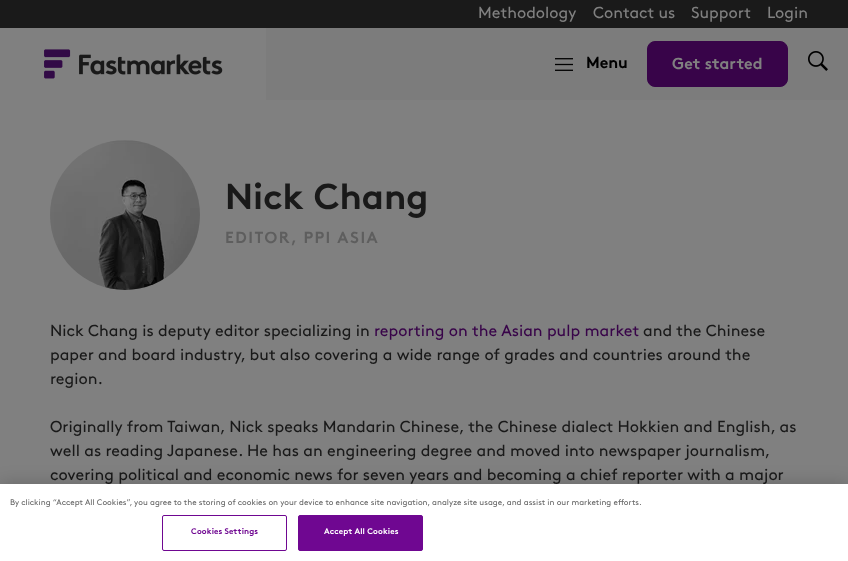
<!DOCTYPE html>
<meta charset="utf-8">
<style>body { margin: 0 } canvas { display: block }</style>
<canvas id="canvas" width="848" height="561"></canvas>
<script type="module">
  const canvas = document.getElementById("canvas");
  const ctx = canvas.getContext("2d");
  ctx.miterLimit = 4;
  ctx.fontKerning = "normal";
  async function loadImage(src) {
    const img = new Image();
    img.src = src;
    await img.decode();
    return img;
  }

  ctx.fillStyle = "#808080";
  ctx.fillRect(0, 0, 848, 561);
  ctx.fillStyle = "#1a1a1a";
  ctx.fillRect(0, 0, 848, 28);
  ctx.font = "16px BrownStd";
  ctx.fillStyle = "#808080";
  ctx.fillText("Methodology", 478, 18);
  ctx.fillText("Contact us", 593, 18);
  ctx.fillText("Support", 691, 18);
  ctx.fillText("Login", 767, 18);
  ctx.fillStyle = "#7c7c7c";
  ctx.fillRect(266, 28, 582, 72);
  ctx.drawImage(await loadImage("img1.png"), 44, 49, 179, 30);
  ctx.drawImage(await loadImage("img2.png"), 555, 58, 18, 13);
  ctx.font = "bold 16px BrownStd";
  ctx.fillStyle = "#000000";
  ctx.fillText("Menu", 586, 68);
  ctx.fillStyle = "#380449";
  ctx.beginPath();
  ctx.roundRect(647.5, 41.5, 140, 45, 7.5);
  ctx.fill();
  ctx.strokeStyle = "#380449";
  ctx.stroke();
  ctx.fillStyle = "#808080";
  ctx.fillText("Get started", 672, 69);
  ctx.drawImage(await loadImage("img3.png"), 808, 51, 20, 20);
  ctx.drawImage(await loadImage("img4.png"), 50, 140, 150, 150);
  ctx.font = "bold 36px BrownStd";
  ctx.fillStyle = "#191919";
  ctx.fillText("Nick Chang", 225, 209);
  ctx.letterSpacing = "1.5px";
  ctx.font = "bold 16px BrownStd";
  ctx.fillStyle = "#5e5e5e";
  ctx.fillText("EDITOR, PPI ASIA", 225, 243);
  ctx.letterSpacing = "0px";
  ctx.font = "16px BrownStd";
  ctx.fillStyle = "#191919";
  ctx.fillText("Nick Chang is deputy editor specializing in", 50, 336);
  ctx.fillStyle = "#380449";
  ctx.fillText("reporting on the Asian pulp market", 374, 336);
  ctx.fillStyle = "#191919";
  ctx.fillText("and the Chinese", 643, 336);
  ctx.fillText("paper and board industry, but also covering a wide range of grades and countries around the", 50, 360);
  ctx.fillText("region.", 50, 384);
  ctx.fillText("Originally from Taiwan, Nick speaks Mandarin Chinese, the Chinese dialect Hokkien and English, as", 50, 432);
  ctx.fillText("well as reading Japanese. He has an engineering degree and moved into newspaper journalism,", 50, 456);
  ctx.fillText("covering political and economic news for seven years and becoming a chief reporter with a major", 50, 480);
  ctx.fillStyle = "rgba(0, 0, 0, 0.2)";
  ctx.filter = "blur(9px)";
  ctx.beginPath();
  ctx.rect(0, 484, 848, 77);
  ctx.fill();
  ctx.filter = "none";
  ctx.fillStyle = "#ffffff";
  ctx.fillRect(0, 484, 848, 77);
  ctx.font = "8.13px BrownStd";
  ctx.fillStyle = "#696969";
  ctx.fillText("By clicking “Accept All Cookies”, you agree to the storing of cookies on your device to enhance site navigation, analyze site usage, and assist in our marketing efforts.", 10, 505);
  ctx.beginPath();
  ctx.roundRect(162.5, 515.5, 124, 35, 1.5);
  ctx.strokeStyle = "#6f0791";
  ctx.stroke();
  ctx.letterSpacing = "0.1px";
  ctx.font = "bold 8.13px BrownStd";
  ctx.fillStyle = "#6f0791";
  ctx.fillText("Cookies Settings", 191, 534);
  ctx.beginPath();
  ctx.roundRect(298.5, 515.5, 124, 35, 1.5);
  ctx.fill();
  ctx.stroke();
  ctx.fillStyle = "#ffffff";
  ctx.fillText("Accept All Cookies", 324, 534);
</script>
